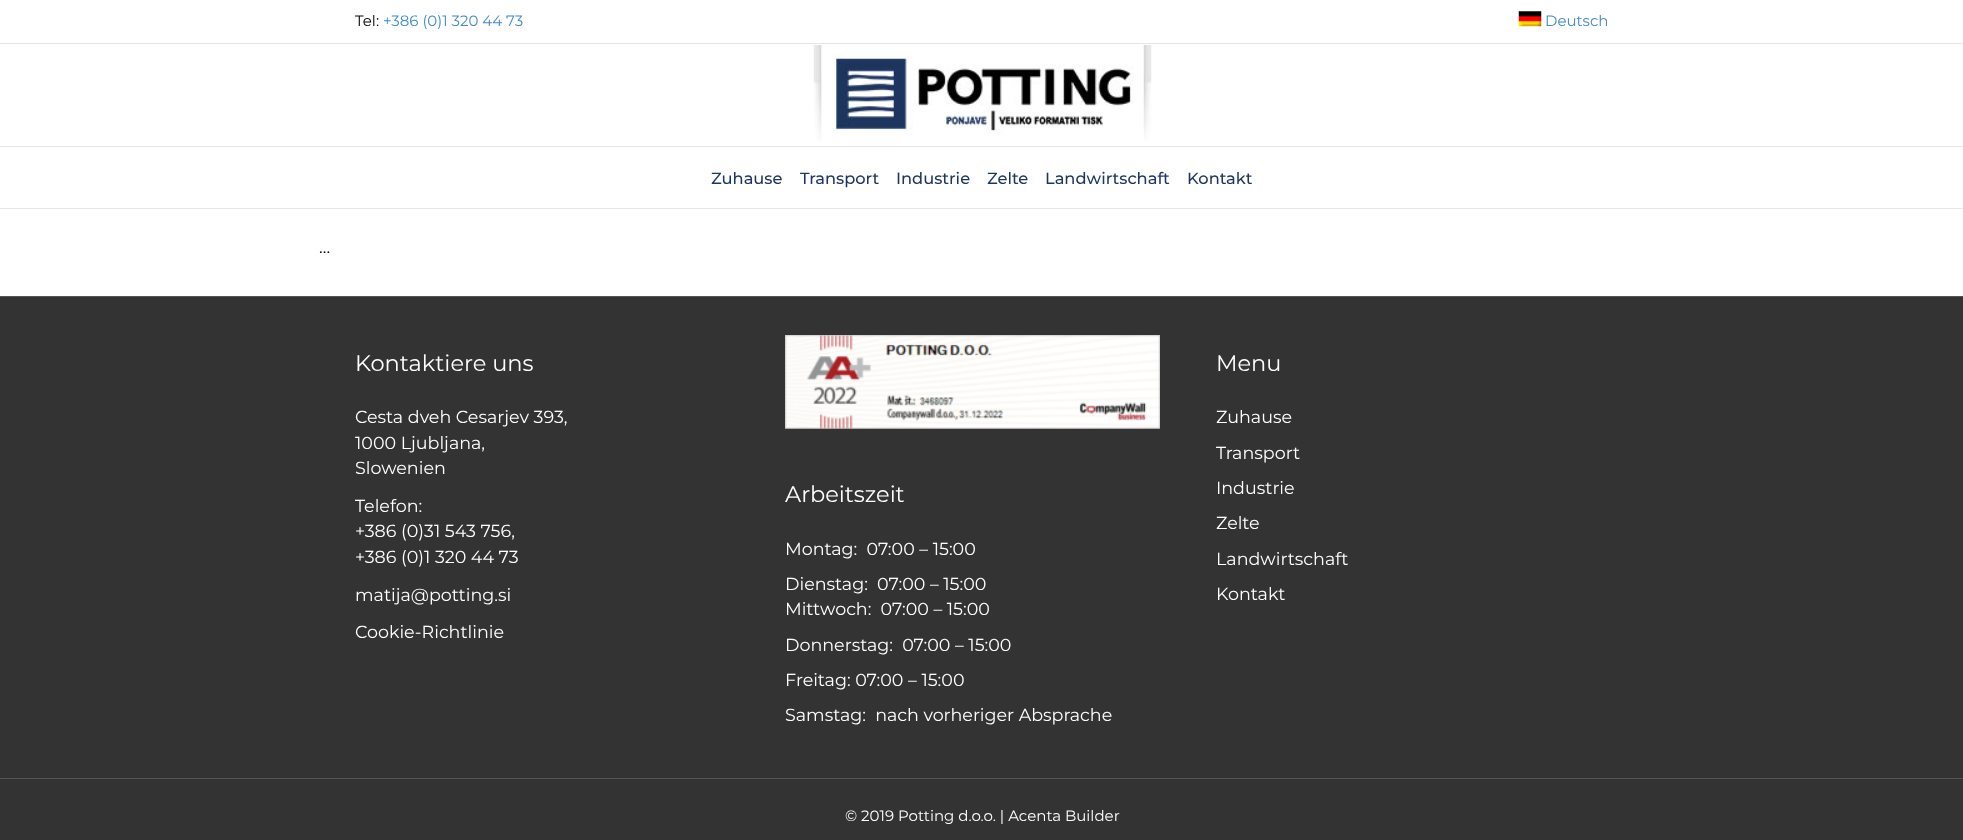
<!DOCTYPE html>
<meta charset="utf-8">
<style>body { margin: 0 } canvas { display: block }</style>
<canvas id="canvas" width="1963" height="840"></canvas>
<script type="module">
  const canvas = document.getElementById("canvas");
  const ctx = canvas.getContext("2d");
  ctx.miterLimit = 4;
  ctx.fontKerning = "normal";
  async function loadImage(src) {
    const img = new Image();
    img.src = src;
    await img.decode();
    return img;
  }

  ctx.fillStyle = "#ffffff";
  ctx.fillRect(0, 0, 1963, 840);
  ctx.fillStyle = "#e6e6e6";
  ctx.fillRect(0, 43, 1963, 1);
  ctx.font = "15px Montserrat";
  ctx.fillStyle = "#000000";
  ctx.fillText("Tel:", 355, 26);
  ctx.fillStyle = "#428bca";
  ctx.fillText("+386 (0)1 320 44 73", 383, 26);
  ctx.drawImage(await loadImage("img1.png"), 1518, 11, 24, 16);
  ctx.fillText("Deutsch", 1545, 26);
  ctx.drawImage(await loadImage("img2.png"), 813, 45, 339, 96);
  ctx.fillStyle = "#e6e6e6";
  ctx.fillRect(0, 146, 1963, 1);
  ctx.fillRect(0, 208, 1963, 1);
  ctx.font = "500 16.25px Montserrat";
  ctx.fillStyle = "#1e365f";
  ctx.fillText("Zuhause", 711, 184);
  ctx.fillText("Transport", 800, 184);
  ctx.fillText("Industrie", 896, 184);
  ctx.fillText("Zelte", 987, 184);
  ctx.fillText("Landwirtschaft", 1045, 184);
  ctx.fillText("Kontakt", 1187, 184);
  ctx.font = "17.5px Montserrat";
  ctx.fillStyle = "#000000";
  ctx.fillText("...", 319, 253);
  ctx.fillStyle = "#333333";
  ctx.fillRect(0, 297, 1963, 481);
  ctx.fillStyle = "#545454";
  ctx.fillRect(0, 296, 1963, 1);
  ctx.font = "22.5px Montserrat";
  ctx.fillStyle = "#ffffff";
  ctx.fillText("Kontaktiere uns", 355, 371);
  ctx.font = "17.5px Montserrat";
  ctx.fillText("Cesta dveh Cesarjev 393,", 355, 423);
  ctx.fillText("1000 Ljubljana,", 355, 449);
  ctx.fillText("Slowenien", 355, 474);
  ctx.fillText("Telefon:", 355, 512);
  ctx.fillText("+386 (0)31 543 756,", 355, 537);
  ctx.fillText("+386 (0)1 320 44 73", 355, 563);
  ctx.fillText("matija@potting.si", 355, 601);
  ctx.fillText("Cookie-Richtlinie", 355, 638);
  ctx.drawImage(await loadImage("img3.png"), 785, 335, 375, 94);
  ctx.font = "22.5px Montserrat";
  ctx.fillText("Arbeitszeit", 785, 502);
  ctx.font = "17.5px Montserrat";
  ctx.fillText("Montag:  07:00 – 15:00", 785, 555);
  ctx.fillText("Dienstag:  07:00 – 15:00", 785, 590);
  ctx.fillText("Mittwoch:  07:00 – 15:00", 785, 615);
  ctx.fillText("Donnerstag:  07:00 – 15:00", 785, 651);
  ctx.fillText("Freitag: 07:00 – 15:00", 785, 686);
  ctx.fillText("Samstag:  nach vorheriger Absprache", 785, 721);
  ctx.font = "22.5px Montserrat";
  ctx.fillText("Menu", 1216, 371);
  ctx.font = "17.5px Montserrat";
  ctx.fillText("Zuhause", 1216, 423);
  ctx.fillText("Transport", 1216, 459);
  ctx.fillText("Industrie", 1216, 494);
  ctx.fillText("Zelte", 1216, 529);
  ctx.fillText("Landwirtschaft", 1216, 565);
  ctx.fillText("Kontakt", 1216, 600);
  ctx.fillStyle = "#333333";
  ctx.fillRect(0, 779, 1963, 61);
  ctx.fillStyle = "#545454";
  ctx.fillRect(0, 778, 1963, 1);
  ctx.font = "15px Montserrat";
  ctx.fillStyle = "#ffffff";
  ctx.fillText("© 2019 Potting d.o.o. | Acenta Builder", 845, 821);
</script>
